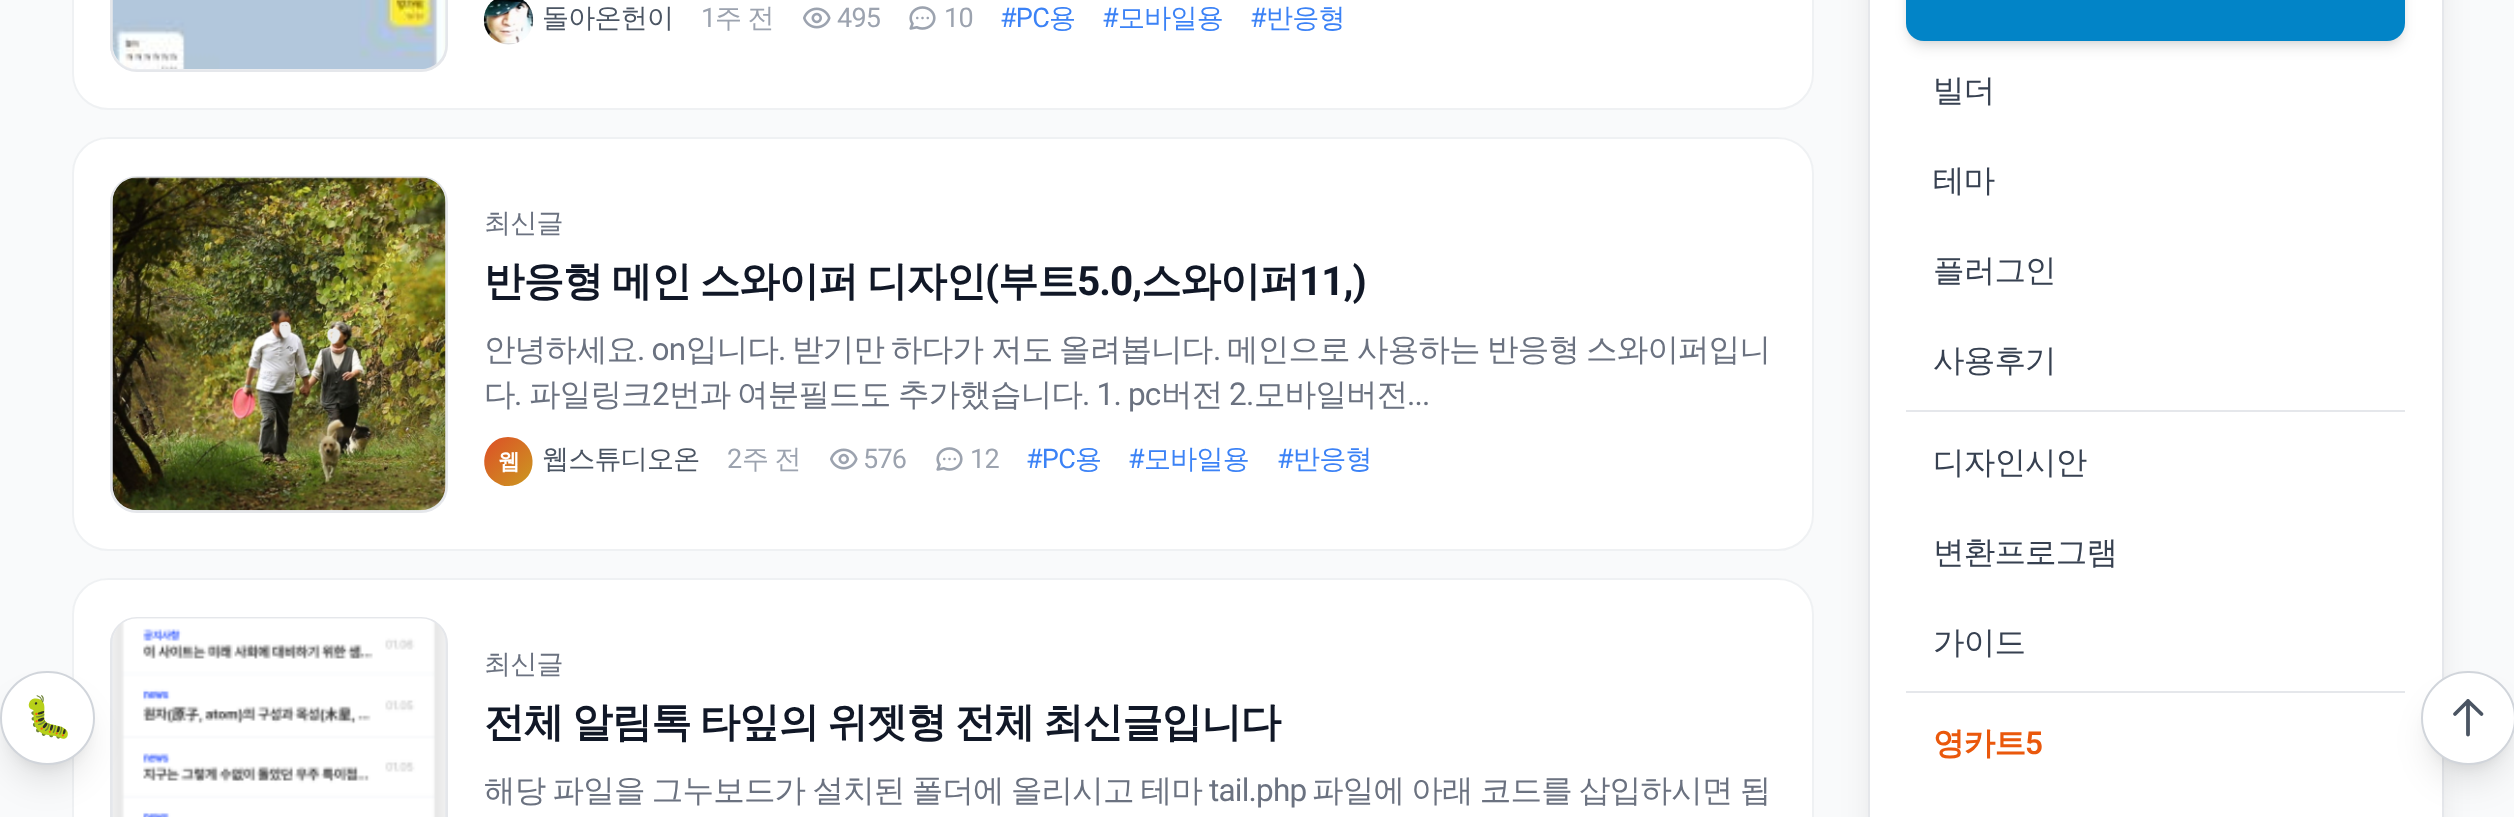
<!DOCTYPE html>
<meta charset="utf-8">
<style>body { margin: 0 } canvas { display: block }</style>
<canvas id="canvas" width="2514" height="817"></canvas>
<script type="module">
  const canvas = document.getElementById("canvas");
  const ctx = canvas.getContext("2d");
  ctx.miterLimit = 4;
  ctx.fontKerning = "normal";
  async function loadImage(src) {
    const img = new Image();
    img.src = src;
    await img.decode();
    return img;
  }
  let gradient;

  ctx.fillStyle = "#f9fafb";
  ctx.fillRect(0, 0, 2514, 817);
  ctx.fillStyle = "#ffffff";
  ctx.beginPath();
  ctx.roundRect(72, 578, 1742, 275, 36);
  ctx.fill();
  ctx.beginPath();
  ctx.roundRect(73, 579, 1740, 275, 35);
  ctx.strokeStyle = "rgba(229, 231, 235, 0.6)";
  ctx.lineWidth = 2;
  ctx.stroke();
  ctx.fillStyle = "rgba(0, 0, 0, 0.1)";
  ctx.filter = "blur(7px)";
  ctx.beginPath();
  ctx.roundRect(9, 689, 77, 76, 38);
  ctx.fill();
  ctx.filter = "none";
  ctx.save();
  ctx.beginPath();
  ctx.roundRect(110, 617, 338, 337, 27);
  ctx.clip();
  gradient = ctx.createLinearGradient(-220, 619, 113, 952);
  gradient.addColorStop(0, "#f3f4f6");
  gradient.addColorStop(1, "#e5e7eb");
  ctx.fillStyle = gradient;
  ctx.fillRect(110, 631, 3, 186);
  gradient = ctx.createLinearGradient(113, 619, 446, 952);
  gradient.addColorStop(0, "#f3f4f6");
  gradient.addColorStop(1, "#e5e7eb");
  ctx.fillStyle = gradient;
  ctx.fillRect(113, 619, 333, 198);
  ctx.restore();
  ctx.beginPath();
  ctx.roundRect(111, 618, 336, 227, 26);
  ctx.strokeStyle = "#e5e7eb";
  ctx.stroke();
  ctx.drawImage(await loadImage("img6.png"), 113, 618, 332, 199);
  ctx.filter = "blur(17px)";
  ctx.beginPath();
  ctx.roundRect(7, 700, 81, 81, 40.5);
  ctx.fill();
  ctx.filter = "none";
  ctx.fillStyle = "#ffffff";
  ctx.beginPath();
  ctx.roundRect(1, 672, 93, 92, 46);
  ctx.fill();
  ctx.strokeStyle = "#d1d5db";
  ctx.stroke();
  ctx.letterSpacing = "-1px";
  ctx.font = "40.5px Noto Color Emoji";
  ctx.fillStyle = "#000000";
  ctx.fillText("🐛", 23, 731);
  ctx.fillStyle = "#ffffff";
  ctx.beginPath();
  ctx.roundRect(72, -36, 1742, 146, 36);
  ctx.fill();
  ctx.beginPath();
  ctx.roundRect(73, -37, 1740, 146, 35);
  ctx.strokeStyle = "rgba(229, 231, 235, 0.6)";
  ctx.stroke();
  ctx.save();
  ctx.beginPath();
  ctx.roundRect(110, -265, 338, 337, 27);
  ctx.clip();
  gradient = ctx.createLinearGradient(-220, -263, 113, 70);
  gradient.addColorStop(0, "#f3f4f6");
  gradient.addColorStop(1, "#e5e7eb");
  ctx.fillStyle = gradient;
  ctx.fillRect(110, 0, 3, 58);
  gradient = ctx.createLinearGradient(113, -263, 446, 70);
  gradient.addColorStop(0, "#f3f4f6");
  gradient.addColorStop(1, "#e5e7eb");
  ctx.fillStyle = gradient;
  ctx.fillRect(113, 0, 333, 70);
  ctx.restore();
  ctx.beginPath();
  ctx.roundRect(111, -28, 336, 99, 26);
  ctx.strokeStyle = "#e5e7eb";
  ctx.stroke();
  ctx.drawImage(await loadImage("img1.png"), 112, 0, 334, 69);
  ctx.drawImage(await loadImage("img2.png"), 483, 0, 51, 45);
  ctx.letterSpacing = "-0.75px";
  ctx.font = "500 27px WenQuanYi Zen Hei";
  ctx.fillStyle = "#4b5563";
  ctx.fillText("돌아온헌이", 542, 27);
  ctx.font = "27px Roboto";
  ctx.fillStyle = "#9ca3af";
  ctx.fillText("1", 701, 27);
  ctx.wordSpacing = "-1px";
  ctx.font = "500 27px WenQuanYi Zen Hei";
  ctx.fillText("주 전", 715, 27);
  ctx.drawImage(await loadImage("img3.png"), 803, 7, 28, 22);
  ctx.wordSpacing = "0px";
  ctx.font = "27px Roboto";
  ctx.fillText("495", 837, 27);
  ctx.drawImage(await loadImage("img4.png"), 909, 6, 27, 24);
  ctx.fillText("10", 944, 27);
  ctx.fillStyle = "#3b82f6";
  ctx.fillText("#PC", 1000, 27);
  ctx.font = "500 27px WenQuanYi Zen Hei";
  ctx.fillText("용", 1049, 27);
  ctx.font = "27px Roboto";
  ctx.fillText("#", 1102, 27);
  ctx.font = "500 27px WenQuanYi Zen Hei";
  ctx.fillText("모바일용", 1118, 27);
  ctx.font = "27px Roboto";
  ctx.fillText("#", 1250, 27);
  ctx.font = "500 27px WenQuanYi Zen Hei";
  ctx.fillText("반응형", 1266, 27);
  ctx.fillStyle = "#ffffff";
  ctx.beginPath();
  ctx.roundRect(72, 137, 1742, 414, 36);
  ctx.fill();
  ctx.beginPath();
  ctx.roundRect(73, 138, 1740, 412, 35);
  ctx.strokeStyle = "rgba(229, 231, 235, 0.6)";
  ctx.stroke();
  ctx.save();
  ctx.beginPath();
  ctx.roundRect(110, 176, 338, 337, 27);
  ctx.clip();
  gradient = ctx.createLinearGradient(-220, 178, 113, 511);
  gradient.addColorStop(0, "#f3f4f6");
  gradient.addColorStop(1, "#e5e7eb");
  ctx.fillStyle = gradient;
  ctx.fillRect(110, 190, 3, 309);
  gradient = ctx.createLinearGradient(113, 178, 446, 511);
  gradient.addColorStop(0, "#f3f4f6");
  gradient.addColorStop(1, "#e5e7eb");
  ctx.fillStyle = gradient;
  ctx.fillRect(113, 178, 333, 333);
  ctx.restore();
  ctx.beginPath();
  ctx.roundRect(111, 177, 336, 335, 26);
  ctx.strokeStyle = "#e5e7eb";
  ctx.stroke();
  ctx.drawImage(await loadImage("img5.png"), 112, 177, 334, 334);
  ctx.fillStyle = "#6b7280";
  ctx.fillText("최신글", 484, 232);
  ctx.letterSpacing = "-1px";
  ctx.wordSpacing = "-2px";
  ctx.font = "bold 40.5px WenQuanYi Zen Hei";
  ctx.fillStyle = "#111827";
  ctx.fillText("반응형 메인 스와이퍼 디자인", 484, 295);
  ctx.wordSpacing = "0px";
  ctx.font = "bold 40.5px Roboto";
  ctx.fillText("(", 985, 295);
  ctx.font = "bold 40.5px WenQuanYi Zen Hei";
  ctx.fillText("부트", 998, 295);
  ctx.font = "bold 40.5px Roboto";
  ctx.fillText("5.0,", 1077, 295);
  ctx.font = "bold 40.5px WenQuanYi Zen Hei";
  ctx.fillText("스와이퍼", 1141, 295);
  ctx.font = "bold 40.5px Roboto";
  ctx.fillText("11,)", 1299, 295);
  ctx.letterSpacing = "-0.8px";
  ctx.font = "500 31.5px WenQuanYi Zen Hei";
  ctx.fillStyle = "#6b7280";
  ctx.fillText("안녕하세요", 484, 360);
  ctx.font = "31.5px Roboto";
  ctx.fillText(". on", 637, 360);
  ctx.font = "500 31.5px WenQuanYi Zen Hei";
  ctx.fillText("입니다", 686, 360);
  ctx.font = "31.5px Roboto";
  ctx.fillText(".", 778, 360);
  ctx.font = "500 31.5px WenQuanYi Zen Hei";
  ctx.fillText("받기만", 792, 360);
  ctx.fillText("하다가", 891, 360);
  ctx.fillText("저도", 991, 360);
  ctx.fillText("올려봅니다", 1059, 360);
  ctx.font = "31.5px Roboto";
  ctx.fillText(".", 1213, 360);
  ctx.font = "500 31.5px WenQuanYi Zen Hei";
  ctx.fillText("메인으로", 1227, 360);
  ctx.fillText("사용하는", 1357, 360);
  ctx.fillText("반응형", 1487, 360);
  ctx.fillText("스와이퍼입니", 1586, 360);
  ctx.fillText("다", 484, 405);
  ctx.font = "31.5px Roboto";
  ctx.fillText(".", 514, 405);
  ctx.font = "500 31.5px WenQuanYi Zen Hei";
  ctx.fillText("파일링크", 529, 405);
  ctx.font = "31.5px Roboto";
  ctx.fillText("2", 652, 405);
  ctx.font = "500 31.5px WenQuanYi Zen Hei";
  ctx.fillText("번과", 669, 405);
  ctx.fillText("여분필드도", 737, 405);
  ctx.fillText("추가했습니다", 898, 405);
  ctx.font = "31.5px Roboto";
  ctx.fillText(". 1. pc", 1082, 405);
  ctx.font = "500 31.5px WenQuanYi Zen Hei";
  ctx.fillText("버전", 1161, 405);
  ctx.font = "31.5px Roboto";
  ctx.fillText("2.", 1229, 405);
  ctx.font = "500 31.5px WenQuanYi Zen Hei";
  ctx.fillText("모바일버전", 1254, 405);
  ctx.font = "31.5px Roboto";
  ctx.fillText("...", 1407, 405);
  gradient = ctx.createLinearGradient(484, 437, 533, 486);
  gradient.addColorStop(0, "#dd4e27");
  gradient.addColorStop(1, "#cb9a20");
  ctx.fillStyle = gradient;
  ctx.beginPath();
  ctx.moveTo(508, 437);
  ctx.bezierCurveTo(482, 437, 475, 474, 499, 484);
  ctx.bezierCurveTo(503, 486, 504, 486, 508, 486);
  ctx.bezierCurveTo(511, 486, 516, 485, 518, 484);
  ctx.bezierCurveTo(542, 474, 535, 437, 508, 437);
  ctx.closePath();
  ctx.fill();
  ctx.letterSpacing = "-1px";
  ctx.font = "bold 22px WenQuanYi Zen Hei";
  ctx.fillStyle = "#ffffff";
  ctx.fillText("웹", 498, 469);
  ctx.letterSpacing = "-0.75px";
  ctx.font = "500 27px WenQuanYi Zen Hei";
  ctx.fillStyle = "#4b5563";
  ctx.fillText("웹스튜디오온", 542, 468);
  ctx.font = "27px Roboto";
  ctx.fillStyle = "#9ca3af";
  ctx.fillText("2", 727, 468);
  ctx.wordSpacing = "-1px";
  ctx.font = "500 27px WenQuanYi Zen Hei";
  ctx.fillText("주 전", 742, 468);
  ctx.drawImage(await loadImage("img3.png"), 830, 448, 28, 22);
  ctx.wordSpacing = "0px";
  ctx.font = "27px Roboto";
  ctx.fillText("576", 863, 468);
  ctx.drawImage(await loadImage("img4.png"), 936, 447, 27, 24);
  ctx.fillText("12", 970, 468);
  ctx.fillStyle = "#3b82f6";
  ctx.fillText("#PC", 1026, 468);
  ctx.font = "500 27px WenQuanYi Zen Hei";
  ctx.fillText("용", 1075, 468);
  ctx.font = "27px Roboto";
  ctx.fillText("#", 1128, 468);
  ctx.font = "500 27px WenQuanYi Zen Hei";
  ctx.fillText("모바일용", 1144, 468);
  ctx.font = "27px Roboto";
  ctx.fillText("#", 1277, 468);
  ctx.font = "500 27px WenQuanYi Zen Hei";
  ctx.fillText("반응형", 1293, 468);
  ctx.fillStyle = "#6b7280";
  ctx.fillText("최신글", 484, 673);
  ctx.letterSpacing = "-1px";
  ctx.wordSpacing = "-2px";
  ctx.font = "bold 40.5px WenQuanYi Zen Hei";
  ctx.fillStyle = "#111827";
  ctx.fillText("전체 알림톡 타잎의 위젯형 전체 최신글입니다", 484, 736);
  ctx.letterSpacing = "-0.8px";
  ctx.wordSpacing = "-1.5px";
  ctx.font = "500 31.5px WenQuanYi Zen Hei";
  ctx.fillStyle = "#6b7280";
  ctx.fillText("해당 파일을 그누보드가 설치된 폴더에 올리시고 테마", 484, 801);
  ctx.wordSpacing = "0px";
  ctx.font = "31.5px Roboto";
  ctx.fillText("tail.php", 1209, 801);
  ctx.wordSpacing = "-1.5px";
  ctx.font = "500 31.5px WenQuanYi Zen Hei";
  ctx.fillText("파일에 아래 코드를 삽입하시면 됩", 1312, 801);
  ctx.fillStyle = "rgba(0, 0, 0, 0.1)";
  ctx.filter = "blur(17px)";
  ctx.beginPath();
  ctx.roundRect(1874, -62, 563, 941, 11);
  ctx.fill();
  ctx.filter = "none";
  ctx.fillStyle = "#ffffff";
  ctx.beginPath();
  ctx.rect(1869, -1, 574, 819);
  ctx.fill();
  ctx.stroke();
  ctx.fillStyle = "rgba(0, 0, 0, 0.1)";
  ctx.filter = "blur(4.5px)";
  ctx.beginPath();
  ctx.roundRect(1910, -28, 491, 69, 14);
  ctx.fill();
  ctx.filter = "none";
  ctx.filter = "blur(7px)";
  ctx.beginPath();
  ctx.roundRect(1908, -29, 495, 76, 16);
  ctx.fill();
  ctx.filter = "none";
  ctx.fillStyle = "#0284c7";
  ctx.beginPath();
  ctx.roundRect(1906, -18, 499, 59, 18);
  ctx.fill();
  ctx.wordSpacing = "0px";
  ctx.fillStyle = "#374151";
  ctx.fillText("빌더", 1933, 101);
  ctx.fillText("테마", 1933, 191);
  ctx.fillText("플러그인", 1933, 281);
  ctx.fillText("사용후기", 1933, 371);
  ctx.fillStyle = "#e5e7eb";
  ctx.fillRect(1906, 410, 499, 2);
  ctx.fillStyle = "#374151";
  ctx.fillText("디자인시안", 1933, 473);
  ctx.fillText("변환프로그램", 1933, 563);
  ctx.fillText("가이드", 1933, 653);
  ctx.fillStyle = "#e5e7eb";
  ctx.fillRect(1906, 691, 499, 2);
  ctx.font = "bold 31.5px WenQuanYi Zen Hei";
  ctx.fillStyle = "#ea580c";
  ctx.fillText("영카트", 1933, 754);
  ctx.font = "600 31.5px Roboto";
  ctx.fillText("5", 2025, 754);
  ctx.fillStyle = "rgba(0, 0, 0, 0.1)";
  ctx.filter = "blur(7px)";
  ctx.beginPath();
  ctx.roundRect(2430, 689, 77, 76, 38);
  ctx.fill();
  ctx.filter = "none";
  ctx.filter = "blur(17px)";
  ctx.beginPath();
  ctx.roundRect(2428, 700, 81, 81, 40.5);
  ctx.fill();
  ctx.filter = "none";
  ctx.fillStyle = "#ffffff";
  ctx.beginPath();
  ctx.roundRect(2422, 672, 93, 92, 46);
  ctx.fill();
  ctx.strokeStyle = "#d1d5db";
  ctx.stroke();
  ctx.beginPath();
  ctx.moveTo(2455, 714);
  ctx.lineTo(2468, 701);
  ctx.moveTo(2468, 701);
  ctx.lineTo(2481.5, 714);
  ctx.moveTo(2468, 701);
  ctx.lineTo(2468, 734.5);
  ctx.strokeStyle = "#4b5563";
  ctx.lineWidth = 3.8;
  ctx.lineCap = "round";
  ctx.lineJoin = "round";
  ctx.stroke();
</script>
